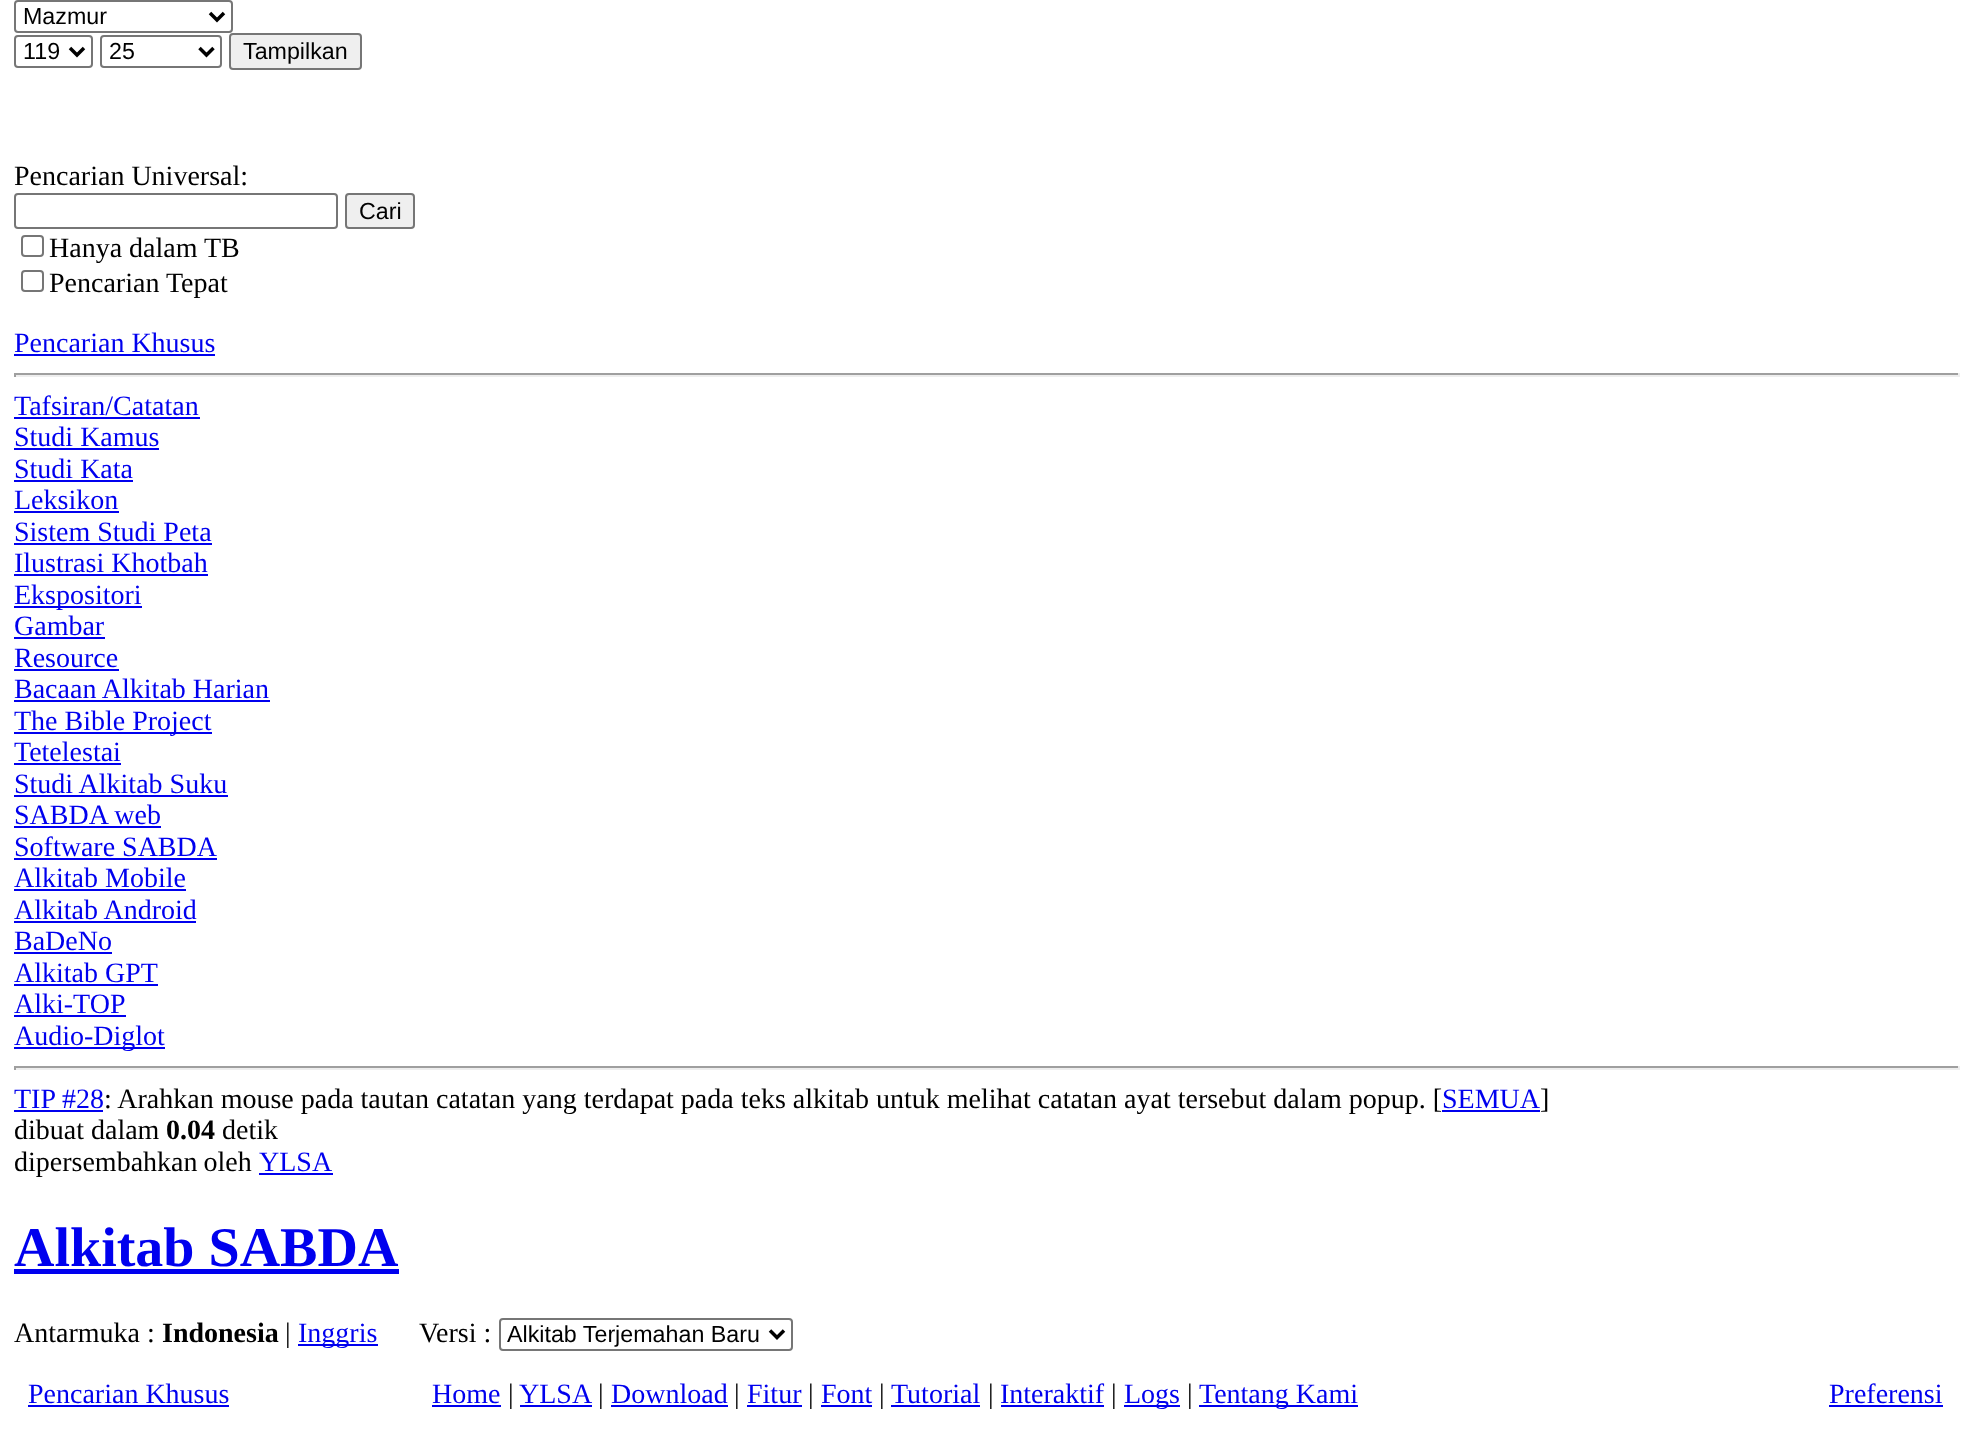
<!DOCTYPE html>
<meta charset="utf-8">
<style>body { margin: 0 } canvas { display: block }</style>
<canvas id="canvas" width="1973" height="1438"></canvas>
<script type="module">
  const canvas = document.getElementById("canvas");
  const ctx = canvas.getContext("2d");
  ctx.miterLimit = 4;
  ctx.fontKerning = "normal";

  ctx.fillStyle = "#ffffff";
  ctx.fillRect(0, 0, 1973, 1438);
  ctx.beginPath();
  ctx.roundRect(15, 1, 217, 31, 3);
  ctx.strokeStyle = "#767676";
  ctx.lineWidth = 2;
  ctx.stroke();
  ctx.beginPath();
  ctx.moveTo(210, 13);
  ctx.lineTo(217, 20);
  ctx.lineTo(224, 13);
  ctx.strokeStyle = "#000000";
  ctx.lineWidth = 3.5;
  ctx.stroke();
  ctx.font = "23.25px Liberation Sans";
  ctx.fillStyle = "#000000";
  ctx.fillText("Mazmur", 23, 24);
  ctx.beginPath();
  ctx.roundRect(15, 36, 77, 31, 3);
  ctx.strokeStyle = "#767676";
  ctx.lineWidth = 2;
  ctx.stroke();
  ctx.beginPath();
  ctx.moveTo(70, 48);
  ctx.lineTo(77, 55);
  ctx.lineTo(84, 48);
  ctx.strokeStyle = "#000000";
  ctx.lineWidth = 3.5;
  ctx.stroke();
  ctx.fillText("119", 23, 59);
  ctx.beginPath();
  ctx.roundRect(101, 36, 120, 31, 3);
  ctx.strokeStyle = "#767676";
  ctx.lineWidth = 2;
  ctx.stroke();
  ctx.beginPath();
  ctx.moveTo(199.5, 48);
  ctx.lineTo(206.5, 55);
  ctx.lineTo(213.5, 48);
  ctx.strokeStyle = "#000000";
  ctx.lineWidth = 3.5;
  ctx.stroke();
  ctx.fillText("25", 109, 59);
  ctx.fillStyle = "#efefef";
  ctx.beginPath();
  ctx.roundRect(230, 34, 131, 35, 3);
  ctx.fill();
  ctx.strokeStyle = "#767676";
  ctx.lineWidth = 2;
  ctx.stroke();
  ctx.fillStyle = "#000000";
  ctx.fillText("Tampilkan", 243, 59);
  ctx.font = "28px Liberation Serif";
  ctx.fillText("Pencarian Universal:", 14, 185);
  ctx.beginPath();
  ctx.roundRect(15, 194, 322, 34, 3);
  ctx.stroke();
  ctx.fillStyle = "#efefef";
  ctx.beginPath();
  ctx.roundRect(346, 194, 68, 34, 3);
  ctx.fill();
  ctx.stroke();
  ctx.font = "23.25px Liberation Sans";
  ctx.fillStyle = "#000000";
  ctx.fillText("Cari", 359, 219);
  ctx.beginPath();
  ctx.roundRect(22, 236, 21, 20, 3);
  ctx.stroke();
  ctx.font = "28px Liberation Serif";
  ctx.fillText("Hanya dalam TB", 49, 257);
  ctx.beginPath();
  ctx.roundRect(22, 271, 21, 20, 3);
  ctx.stroke();
  ctx.fillText("Pencarian Tepat", 49, 292);
  ctx.fillStyle = "#0000ee";
  ctx.fillText("Pencarian Khusus", 14, 352);
  ctx.fillRect(14, 354, 201, 2);
  ctx.fillStyle = "#9f9f9f";
  ctx.fillRect(14, 373, 1946, 2);
  ctx.fillStyle = "#eeeeee";
  ctx.fillRect(1958, 373, 2, 4);
  ctx.fillRect(14, 375, 1946, 2);
  ctx.fillStyle = "#9f9f9f";
  ctx.fillRect(14, 373, 2, 4);
  ctx.fillStyle = "#0000ee";
  ctx.fillText("Tafsiran/Catatan", 14, 415);
  ctx.fillRect(14, 417, 186, 2);
  ctx.fillText("Studi Kamus", 14, 446);
  ctx.fillRect(14, 448, 145, 2);
  ctx.fillText("Studi Kata", 14, 478);
  ctx.fillRect(14, 480, 119, 2);
  ctx.fillText("Leksikon", 14, 509);
  ctx.fillRect(14, 511, 105, 2);
  ctx.fillText("Sistem Studi Peta", 14, 541);
  ctx.fillRect(14, 543, 198, 2);
  ctx.fillText("Ilustrasi Khotbah", 14, 572);
  ctx.fillRect(14, 574, 194, 2);
  ctx.fillRect(14, 606, 128, 2);
  ctx.fillText("Ekspositori", 14, 604);
  ctx.fillText("Gambar", 14, 635);
  ctx.fillRect(14, 637, 91, 2);
  ctx.fillText("Resource", 14, 667);
  ctx.fillRect(14, 669, 105, 2);
  ctx.fillText("Bacaan Alkitab Harian", 14, 698);
  ctx.fillRect(14, 700, 256, 2);
  ctx.fillRect(14, 732, 198, 2);
  ctx.fillText("The Bible Project", 14, 730);
  ctx.fillText("Tetelestai", 14, 761);
  ctx.fillRect(14, 763, 107, 2);
  ctx.fillText("Studi Alkitab Suku", 14, 793);
  ctx.fillRect(14, 795, 214, 2);
  ctx.fillText("SABDA web", 14, 824);
  ctx.fillRect(14, 826, 147, 2);
  ctx.fillText("Software SABDA", 14, 856);
  ctx.fillRect(14, 858, 203, 2);
  ctx.fillText("Alkitab Mobile", 14, 887);
  ctx.fillRect(14, 889, 172, 2);
  ctx.fillText("Alkitab Android", 14, 919);
  ctx.fillRect(14, 921, 182, 2);
  ctx.fillText("BaDeNo", 14, 950);
  ctx.fillRect(14, 952, 98, 2);
  ctx.fillText("Alkitab GPT", 14, 982);
  ctx.fillRect(14, 984, 144, 2);
  ctx.fillText("Alki-TOP", 14, 1013);
  ctx.fillRect(14, 1015, 112, 2);
  ctx.fillRect(14, 1047, 151, 2);
  ctx.fillText("Audio-Diglot", 14, 1045);
  ctx.fillStyle = "#9f9f9f";
  ctx.fillRect(14, 1066, 1946, 2);
  ctx.fillStyle = "#eeeeee";
  ctx.fillRect(1958, 1066, 2, 4);
  ctx.fillRect(14, 1068, 1946, 2);
  ctx.fillStyle = "#9f9f9f";
  ctx.fillRect(14, 1066, 2, 4);
  ctx.fillStyle = "#0000ee";
  ctx.fillText("TIP #28", 14, 1108);
  ctx.fillRect(14, 1110, 89, 2);
  ctx.fillStyle = "#000000";
  ctx.fillText(": Arahkan mouse pada tautan catatan yang terdapat pada teks alkitab untuk melihat catatan ayat tersebut dalam popup. [", 104, 1108);
  ctx.fillStyle = "#0000ee";
  ctx.fillText("SEMUA", 1442, 1108);
  ctx.fillRect(1442, 1110, 98, 2);
  ctx.fillStyle = "#000000";
  ctx.fillText("]", 1540, 1108);
  ctx.fillText("dibuat dalam", 14, 1139);
  ctx.font = "bold 28px Liberation Serif";
  ctx.fillText("0.04", 166, 1139);
  ctx.font = "28px Liberation Serif";
  ctx.fillText("detik", 222, 1139);
  ctx.wordSpacing = "-1px";
  ctx.fillText("dipersembahkan oleh", 14, 1171);
  ctx.wordSpacing = "0px";
  ctx.fillStyle = "#0000ee";
  ctx.fillText("YLSA", 259, 1171);
  ctx.fillRect(259, 1173, 74, 2);
  ctx.font = "bold 56px Liberation Serif";
  ctx.fillText("Alkitab SABDA", 14, 1266);
  ctx.fillRect(14, 1269, 385, 5);
  ctx.font = "28px Liberation Serif";
  ctx.fillStyle = "#000000";
  ctx.fillText("Antarmuka :", 14, 1342);
  ctx.font = "bold 28px Liberation Serif";
  ctx.fillText("Indonesia", 162, 1342);
  ctx.font = "28px Liberation Serif";
  ctx.fillText("|", 285, 1342);
  ctx.fillStyle = "#0000ee";
  ctx.fillRect(298, 1344, 80, 2);
  ctx.fillText("Inggris", 298, 1342);
  ctx.fillStyle = "#000000";
  ctx.fillText("Versi :", 419, 1342);
  ctx.beginPath();
  ctx.roundRect(500, 1319, 292, 31, 3);
  ctx.stroke();
  ctx.beginPath();
  ctx.moveTo(770, 1330.5);
  ctx.lineTo(777, 1337.5);
  ctx.lineTo(784, 1330.5);
  ctx.strokeStyle = "#000000";
  ctx.lineWidth = 3.5;
  ctx.stroke();
  ctx.font = "23.25px Liberation Sans";
  ctx.fillText("Alkitab Terjemahan Baru", 507, 1342);
  ctx.font = "28px Liberation Serif";
  ctx.fillStyle = "#0000ee";
  ctx.fillText("Pencarian Khusus", 28, 1403);
  ctx.fillRect(28, 1405, 201, 2);
  ctx.fillText("Home", 432, 1403);
  ctx.fillRect(432, 1405, 69, 2);
  ctx.fillStyle = "#000000";
  ctx.fillText("|", 508, 1403);
  ctx.fillStyle = "#0000ee";
  ctx.fillText("YLSA", 519, 1403);
  ctx.fillRect(520, 1405, 72, 2);
  ctx.fillStyle = "#000000";
  ctx.fillText("|", 598, 1403);
  ctx.fillStyle = "#0000ee";
  ctx.fillText("Download", 611, 1403);
  ctx.fillRect(611, 1405, 117, 2);
  ctx.fillStyle = "#000000";
  ctx.fillText("|", 734, 1403);
  ctx.fillStyle = "#0000ee";
  ctx.fillText("Fitur", 747, 1403);
  ctx.fillRect(747, 1405, 55, 2);
  ctx.fillStyle = "#000000";
  ctx.fillText("|", 808, 1403);
  ctx.fillStyle = "#0000ee";
  ctx.fillText("Font", 821, 1403);
  ctx.fillRect(821, 1405, 51, 2);
  ctx.fillStyle = "#000000";
  ctx.fillText("|", 879, 1403);
  ctx.fillStyle = "#0000ee";
  ctx.fillText("Tutorial", 891, 1403);
  ctx.fillRect(891, 1405, 89, 2);
  ctx.fillStyle = "#000000";
  ctx.fillText("|", 988, 1403);
  ctx.fillStyle = "#0000ee";
  ctx.fillText("Interaktif", 1000, 1403);
  ctx.fillRect(1001, 1405, 103, 2);
  ctx.fillStyle = "#000000";
  ctx.fillText("|", 1111, 1403);
  ctx.fillStyle = "#0000ee";
  ctx.fillRect(1124, 1405, 56, 2);
  ctx.fillText("Logs", 1124, 1403);
  ctx.fillStyle = "#000000";
  ctx.fillText("|", 1187, 1403);
  ctx.fillStyle = "#0000ee";
  ctx.fillRect(1199, 1405, 159, 2);
  ctx.fillText("Tentang Kami", 1199, 1403);
  ctx.fillText("Preferensi", 1829, 1403);
  ctx.fillRect(1829, 1405, 114, 2);
</script>
